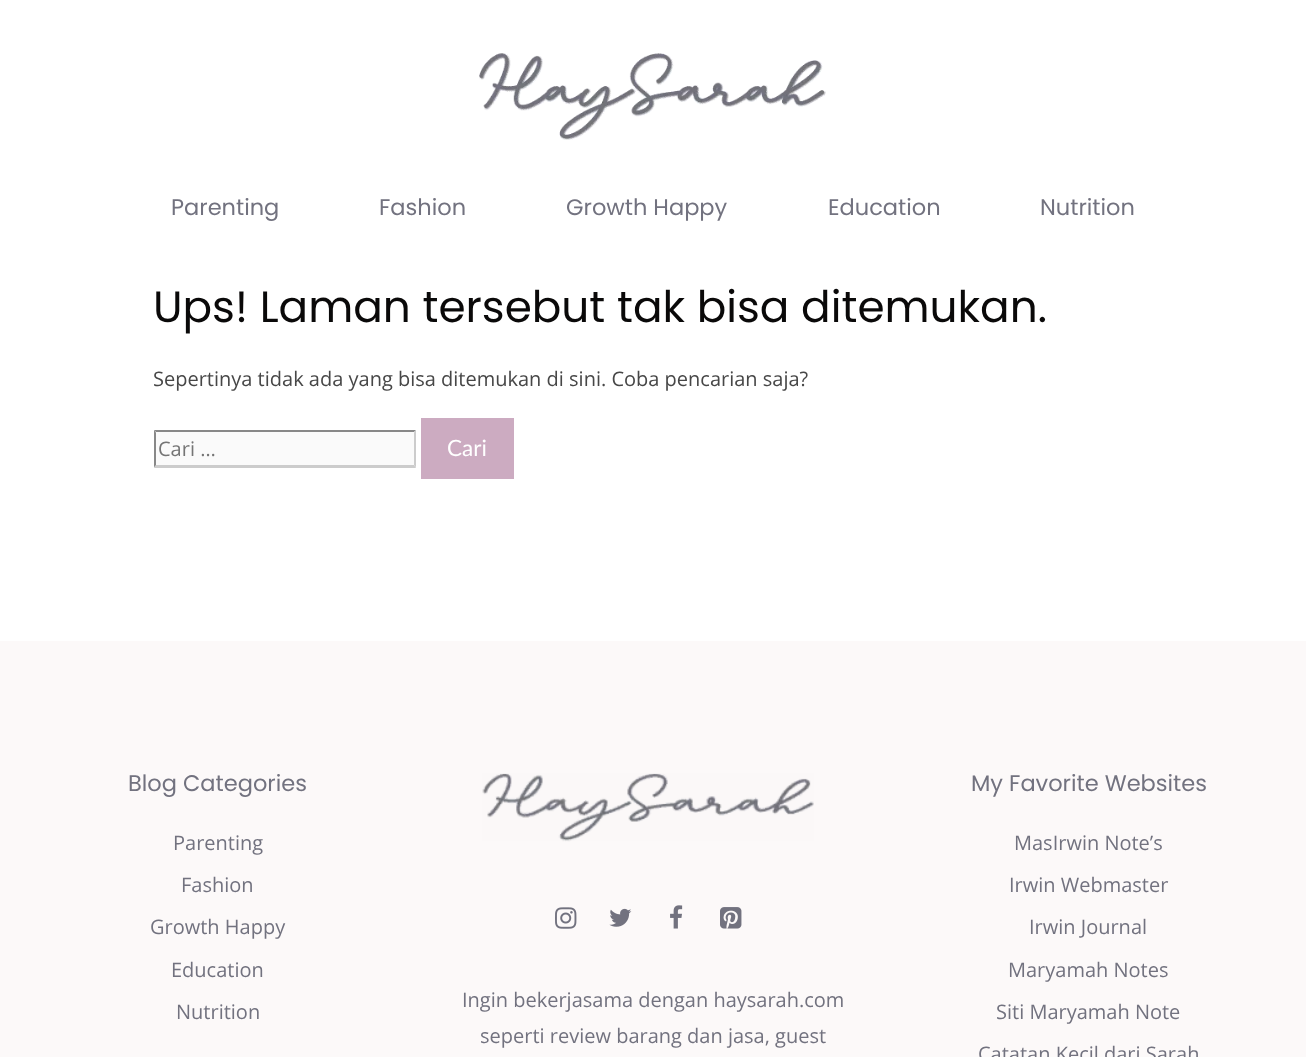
<!DOCTYPE html>
<meta charset="utf-8">
<style>body { margin: 0 } canvas { display: block }</style>
<canvas id="canvas" width="1306" height="1057"></canvas>
<script type="module">
  const canvas = document.getElementById("canvas");
  const ctx = canvas.getContext("2d");
  ctx.miterLimit = 4;
  ctx.fontKerning = "normal";
  async function loadImage(src) {
    const img = new Image();
    img.src = src;
    await img.decode();
    return img;
  }

  ctx.fillStyle = "#ffffff";
  ctx.fillRect(0, 0, 1306, 1057);
  ctx.drawImage(await loadImage("img1.png"), 479, 53, 347, 87);
  ctx.font = "22.5px Poppins";
  ctx.fillStyle = "#72727f";
  ctx.fillText("Parenting", 171, 215);
  ctx.fillText("Fashion", 379, 215);
  ctx.fillText("Growth Happy", 566, 215);
  ctx.fillText("Education", 828, 215);
  ctx.fillText("Nutrition", 1040, 215);
  ctx.font = "43.75px Poppins";
  ctx.fillStyle = "#0a0909";
  ctx.fillText("Ups! Laman tersebut tak bisa ditemukan.", 153, 322);
  ctx.font = "20px Open Sans";
  ctx.fillStyle = "#474747";
  ctx.fillText("Sepertinya tidak ada yang bisa ditemukan di sini. Coba pencarian saja?", 153, 386);
  ctx.fillStyle = "#fafafa";
  ctx.fillRect(154, 430, 262, 38);
  ctx.fillStyle = "#888888";
  ctx.beginPath();
  ctx.moveTo(154, 430);
  ctx.lineTo(416, 430);
  ctx.lineTo(414, 432);
  ctx.lineTo(156, 432);
  ctx.closePath();
  ctx.fill();
  ctx.fillStyle = "#cccccc";
  ctx.beginPath();
  ctx.moveTo(416, 430);
  ctx.lineTo(416, 467.5);
  ctx.lineTo(414, 465);
  ctx.lineTo(414, 432.5);
  ctx.closePath();
  ctx.fill();
  ctx.beginPath();
  ctx.moveTo(416, 468);
  ctx.lineTo(154, 468);
  ctx.lineTo(156, 465);
  ctx.lineTo(414, 465);
  ctx.closePath();
  ctx.fill();
  ctx.fillStyle = "#888888";
  ctx.beginPath();
  ctx.moveTo(154, 467.5);
  ctx.lineTo(154, 430);
  ctx.lineTo(156, 432.5);
  ctx.lineTo(156, 465);
  ctx.closePath();
  ctx.fill();
  ctx.fillStyle = "#757575";
  ctx.fillText("Cari …", 158, 456);
  ctx.fillStyle = "#ccabc1";
  ctx.fillRect(421, 418, 93, 61);
  ctx.font = "22.5px Lato";
  ctx.fillStyle = "#ffffff";
  ctx.fillText("Cari", 447, 456);
  ctx.fillStyle = "#fcf9f9";
  ctx.fillRect(0, 641, 1306, 416);
  ctx.font = "22.5px Poppins";
  ctx.fillStyle = "#72727f";
  ctx.fillText("Blog Categories", 128, 791);
  ctx.font = "20px Open Sans";
  ctx.fillText("Parenting", 173, 850);
  ctx.fillText("Fashion", 181, 892);
  ctx.fillText("Growth Happy", 150, 934);
  ctx.fillText("Education", 171, 977);
  ctx.fillText("Nutrition", 176, 1019);
  ctx.drawImage(await loadImage("img2.png"), 482, 773, 332, 69);
  ctx.drawImage(await loadImage("img3.png"), 555, 907, 22, 22);
  ctx.drawImage(await loadImage("img4.png"), 609, 908, 23, 19);
  ctx.drawImage(await loadImage("img5.png"), 670, 905, 13, 24);
  ctx.drawImage(await loadImage("img6.png"), 720, 907, 22, 22);
  ctx.fillText("Ingin bekerjasama dengan haysarah.com", 462, 1007);
  ctx.fillText("seperti review barang dan jasa, guest", 480, 1043);
  ctx.font = "22.5px Poppins";
  ctx.fillText("My Favorite Websites", 971, 791);
  ctx.font = "20px Open Sans";
  ctx.fillText("MasIrwin Note’s", 1014, 850);
  ctx.fillText("Irwin Webmaster", 1009, 892);
  ctx.fillText("Irwin Journal", 1029, 934);
  ctx.fillText("Maryamah Notes", 1008, 977);
  ctx.fillText("Siti Maryamah Note", 996, 1019);
  ctx.fillText("Catatan Kecil dari Sarah", 978, 1061);
</script>
